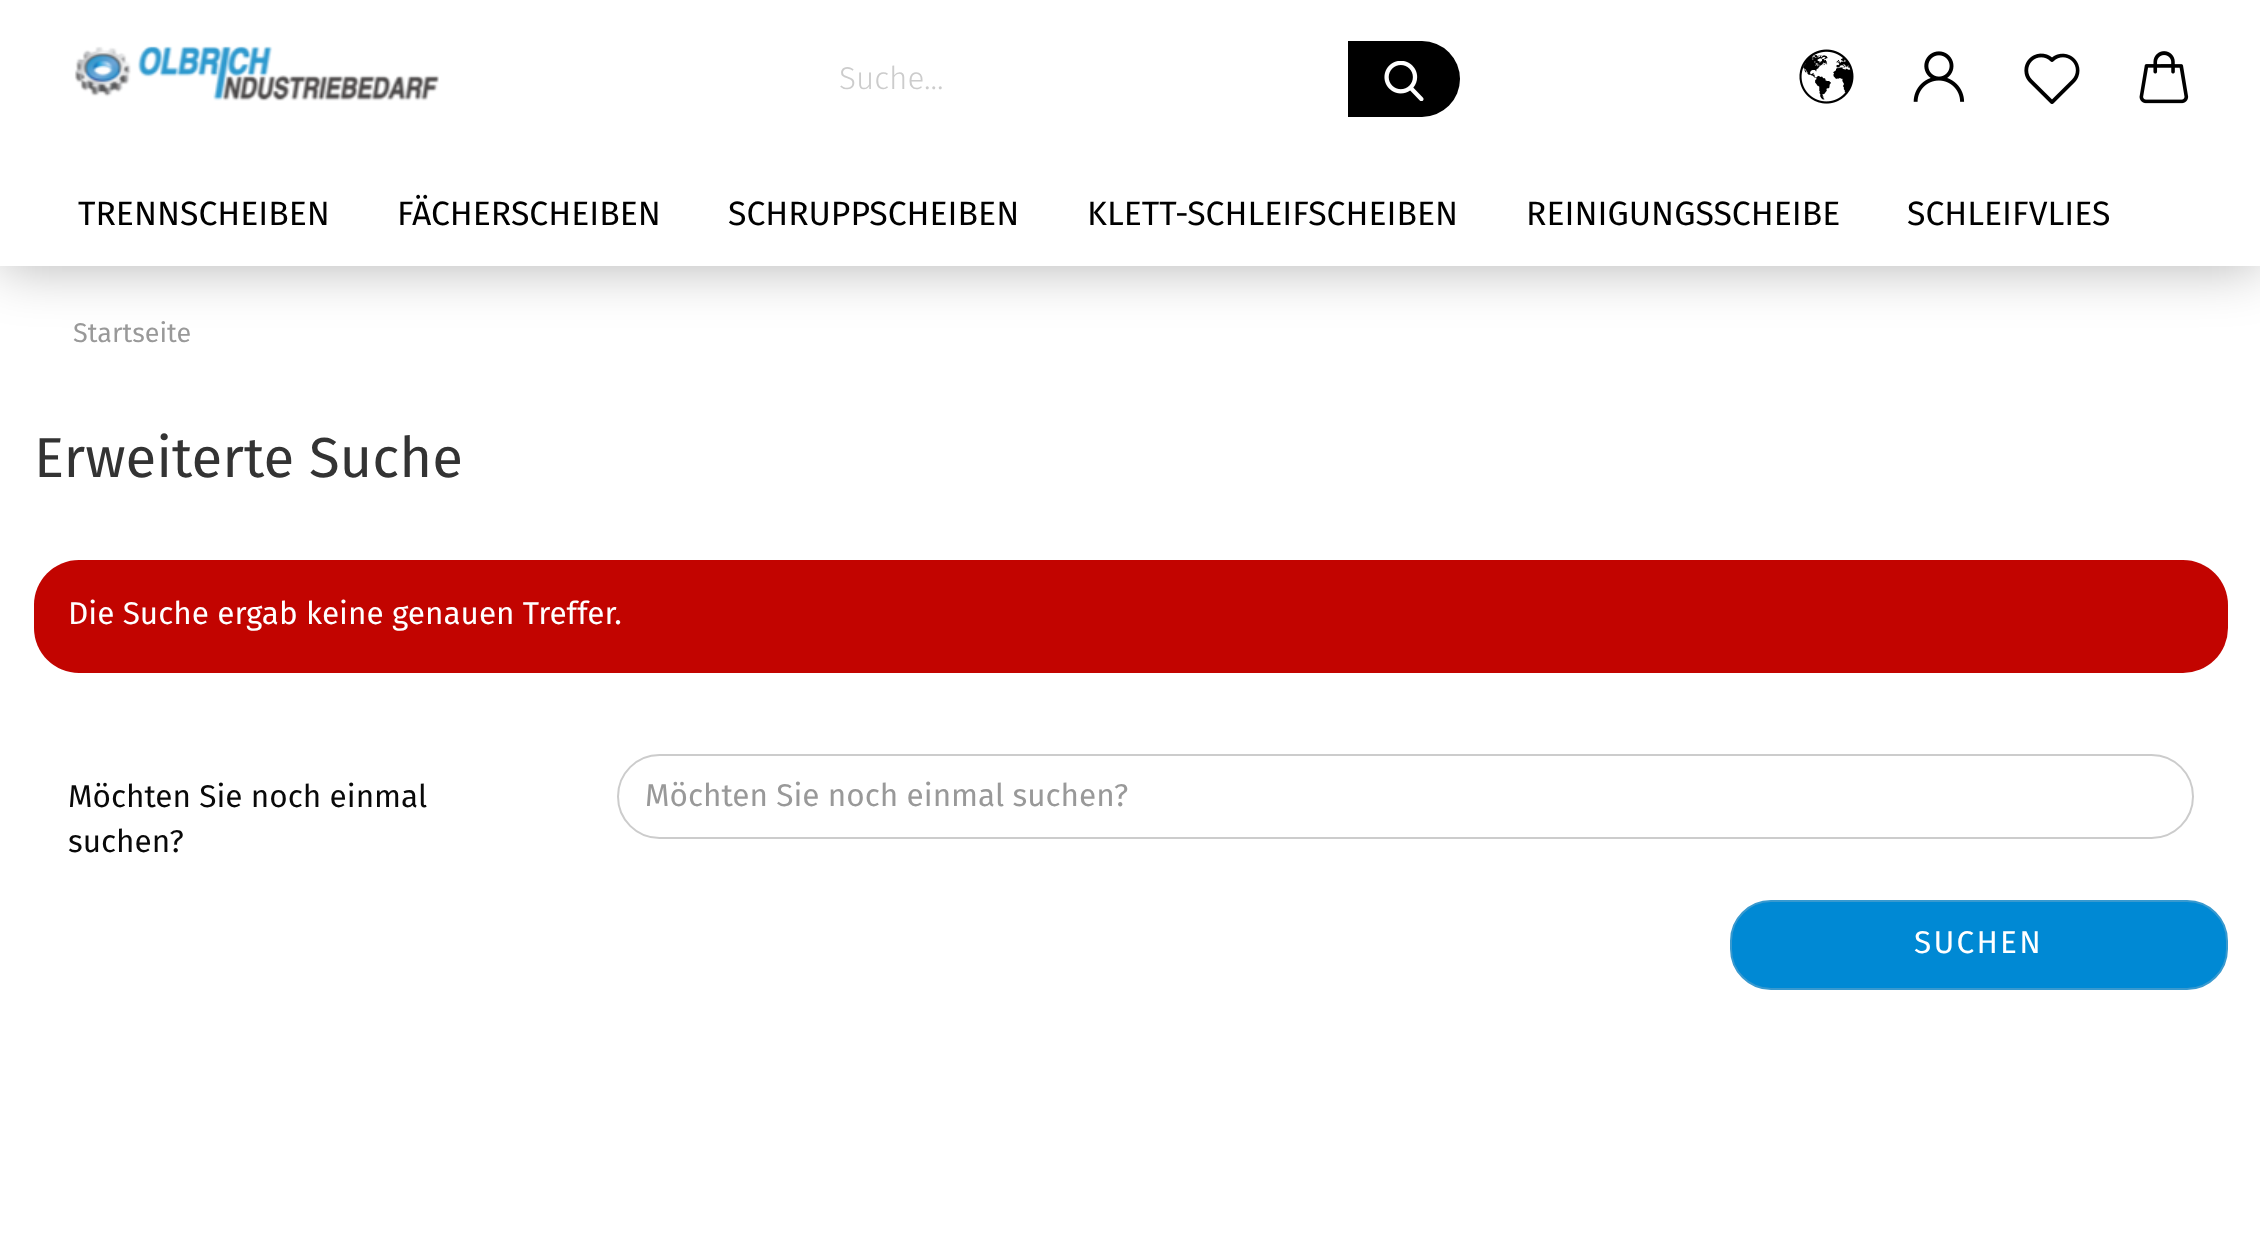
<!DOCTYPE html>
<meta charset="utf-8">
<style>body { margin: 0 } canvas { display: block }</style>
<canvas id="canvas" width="2260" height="1256"></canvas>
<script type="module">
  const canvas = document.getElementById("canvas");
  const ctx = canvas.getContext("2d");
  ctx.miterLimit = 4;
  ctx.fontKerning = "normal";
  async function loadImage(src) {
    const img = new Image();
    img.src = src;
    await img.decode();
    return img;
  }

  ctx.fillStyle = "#ffffff";
  ctx.fillRect(0, 0, 2260, 1256);
  ctx.fillStyle = "rgba(0, 0, 0, 0.3)";
  ctx.filter = "blur(28px)";
  ctx.beginPath();
  ctx.rect(0, 0, 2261, 266);
  ctx.fill();
  ctx.filter = "none";
  ctx.fillStyle = "#ffffff";
  ctx.fillRect(0, 0, 2260, 266);
  ctx.drawImage(await loadImage("img1.png"), 74, 46, 365, 55);
  ctx.font = "300 31.5px Fira Sans";
  ctx.fillStyle = "#cccccc";
  ctx.fillText("Suche...", 839, 89);
  ctx.fillStyle = "#000000";
  ctx.beginPath();
  ctx.roundRect(1348, 41, 112, 76, [0, 38, 38, 0]);
  ctx.fill();
  ctx.drawImage(await loadImage("img2.png"), 1384, 61, 40, 40);
  ctx.drawImage(await loadImage("img3.png"), 1799, 49, 55, 55);
  ctx.drawImage(await loadImage("img4.png"), 1913, 51, 52, 51);
  ctx.drawImage(await loadImage("img5.png"), 2024, 53, 56, 51);
  ctx.drawImage(await loadImage("img6.png"), 2139, 51, 50, 53);
  ctx.font = "33.75px Fira Sans";
  ctx.fillText("TRENNSCHEIBEN", 78, 225);
  ctx.fillText("FÄCHERSCHEIBEN", 397, 225);
  ctx.fillText("SCHRUPPSCHEIBEN", 728, 225);
  ctx.fillText("KLETT-SCHLEIFSCHEIBEN", 1087, 225);
  ctx.fillText("REINIGUNGSSCHEIBE", 1526, 225);
  ctx.fillText("SCHLEIFVLIES", 1907, 225);
  ctx.font = "27px Fira Sans";
  ctx.fillStyle = "#999999";
  ctx.fillText("Startseite", 73, 342);
  ctx.font = "56.25px Fira Sans";
  ctx.fillStyle = "#333333";
  ctx.fillText("Erweiterte Suche", 34, 477);
  ctx.fillStyle = "#c20400";
  ctx.beginPath();
  ctx.roundRect(34, 560, 2194, 113, 45);
  ctx.fill();
  ctx.font = "31.5px Fira Sans";
  ctx.fillStyle = "#ffffff";
  ctx.fillText("Die Suche ergab keine genauen Treffer.", 68, 624);
  ctx.fillStyle = "#090909";
  ctx.fillText("Möchten Sie noch einmal", 68, 807);
  ctx.fillText("suchen?", 68, 852);
  ctx.beginPath();
  ctx.roundRect(618, 755, 1575, 83, 41.5);
  ctx.strokeStyle = "#cccccc";
  ctx.lineWidth = 2;
  ctx.stroke();
  ctx.fillStyle = "#999999";
  ctx.fillText("Möchten Sie noch einmal suchen?", 645, 806);
  ctx.fillStyle = "#0089d4";
  ctx.beginPath();
  ctx.roundRect(1731, 901, 496, 88, 40);
  ctx.fill();
  ctx.strokeStyle = "#3899cf";
  ctx.stroke();
  ctx.letterSpacing = "2.25px";
  ctx.fillStyle = "#ffffff";
  ctx.fillText("SUCHEN", 1914, 953);
</script>
